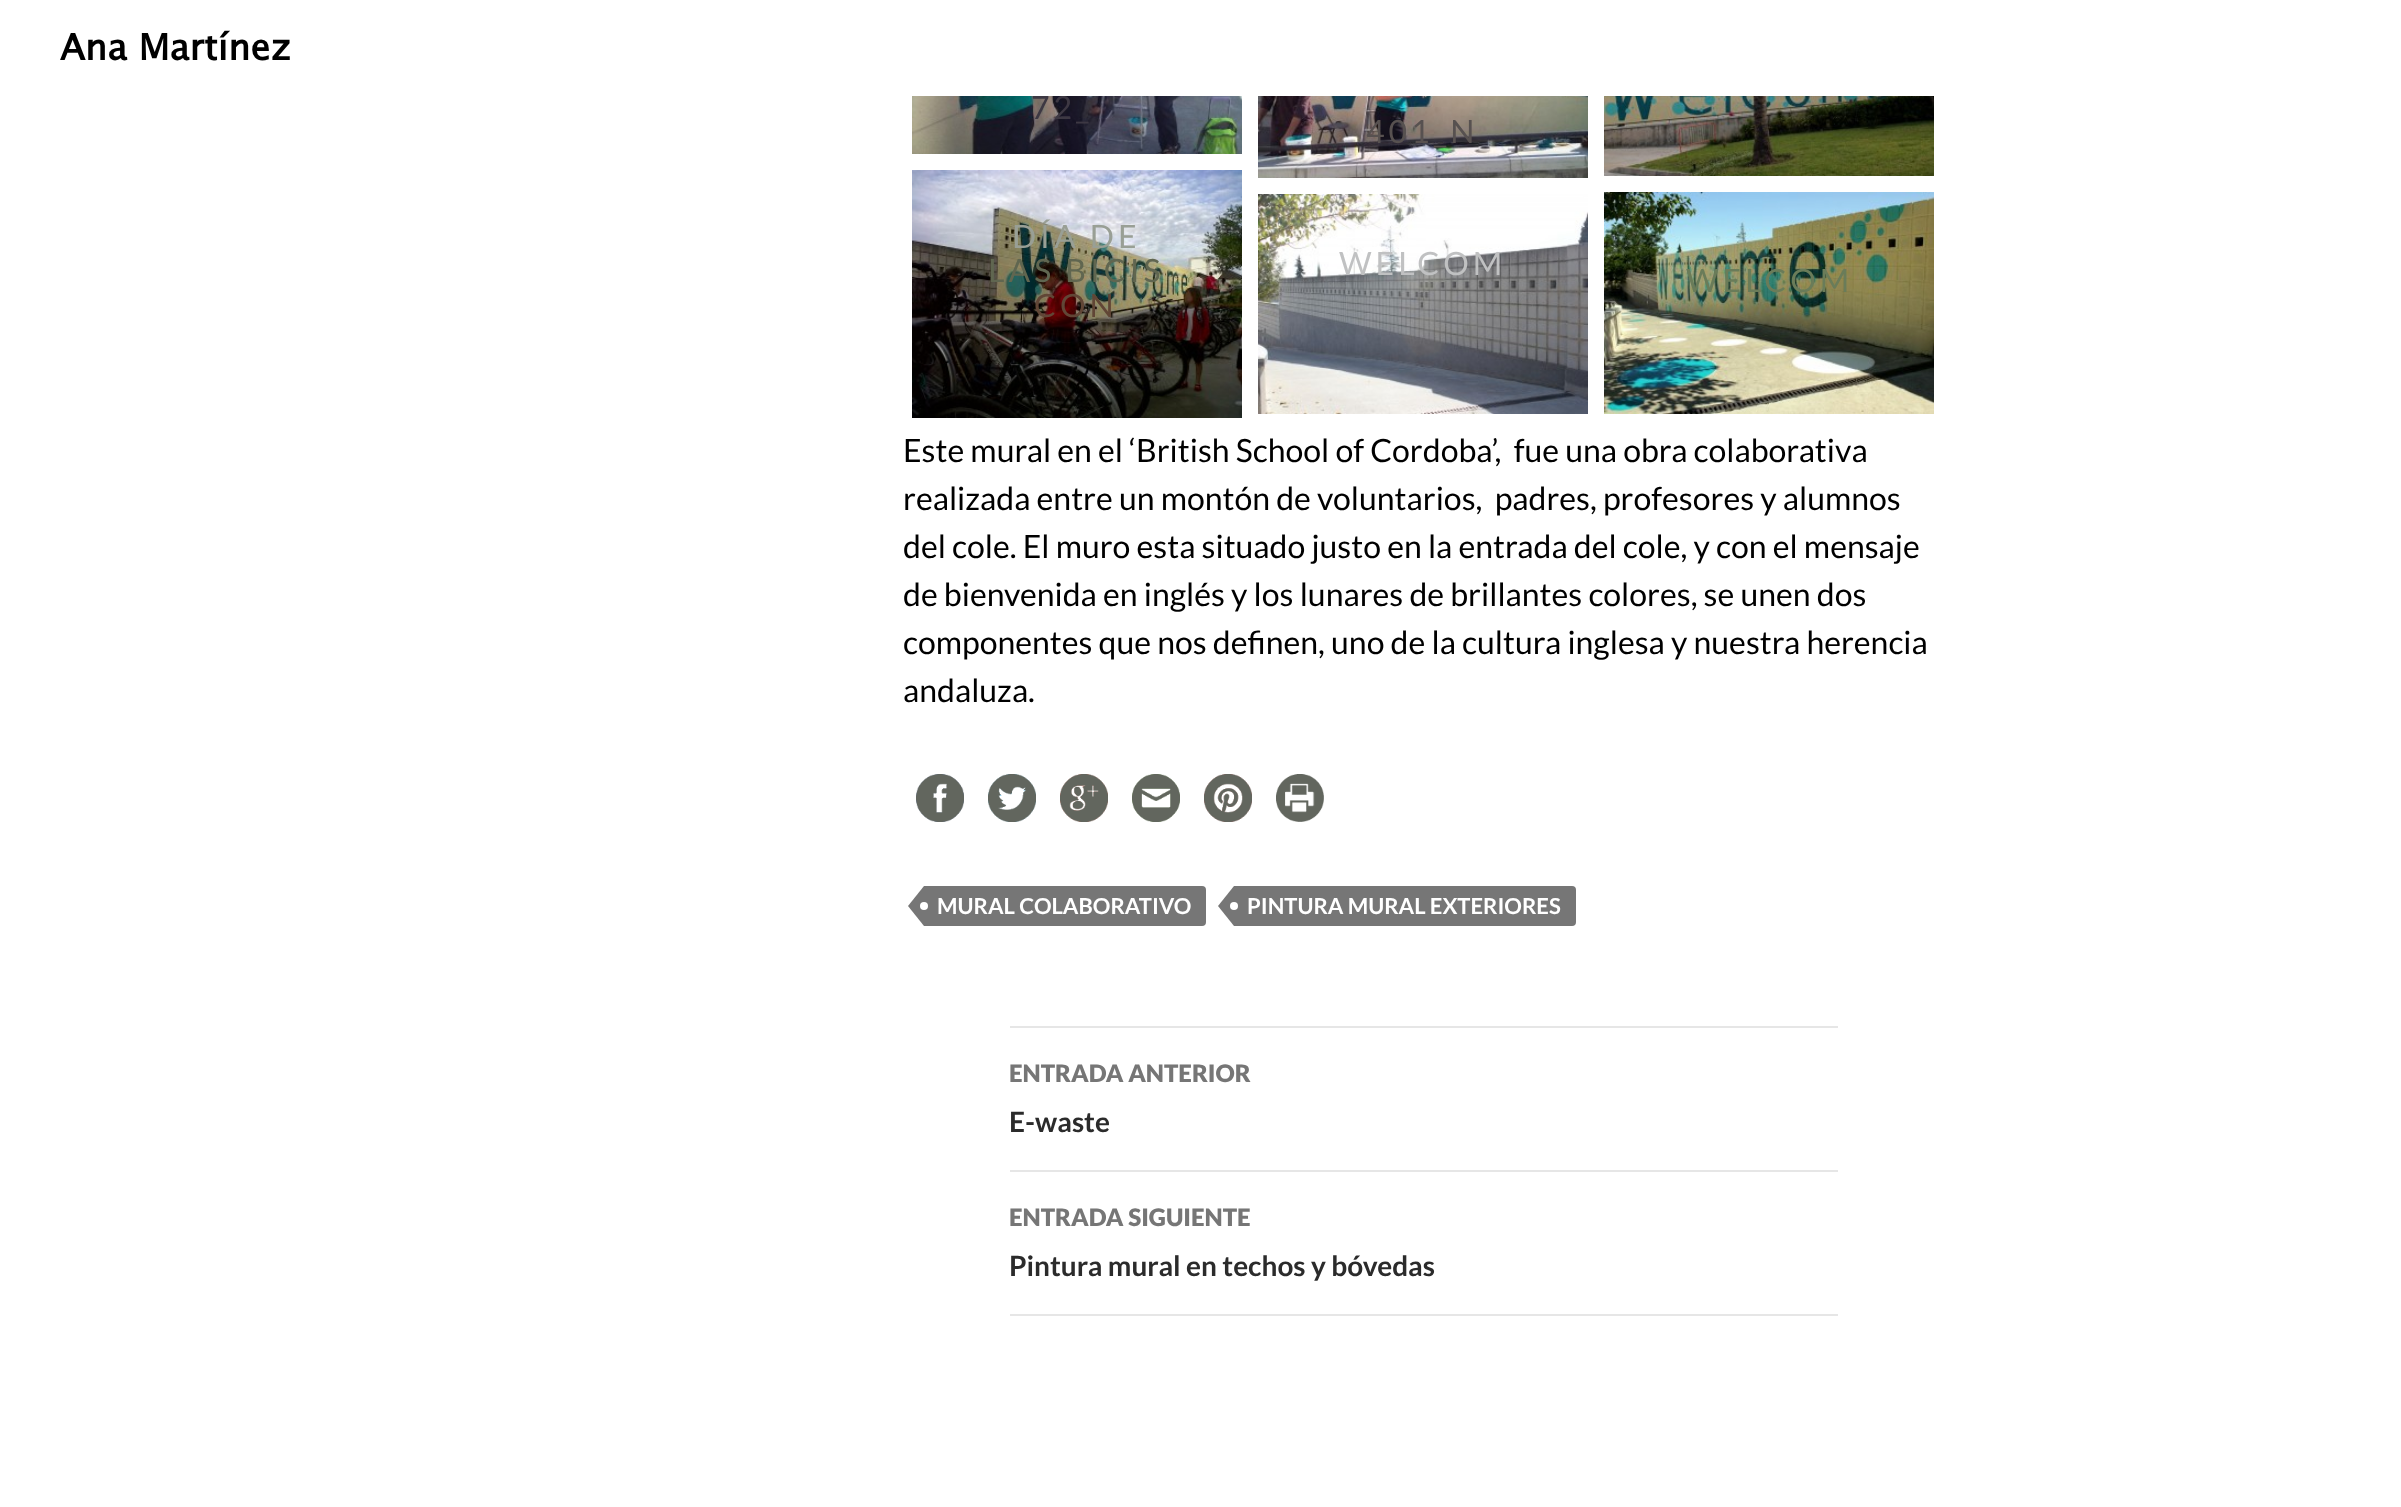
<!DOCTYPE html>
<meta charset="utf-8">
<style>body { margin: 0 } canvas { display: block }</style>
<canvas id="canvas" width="2401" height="1507"></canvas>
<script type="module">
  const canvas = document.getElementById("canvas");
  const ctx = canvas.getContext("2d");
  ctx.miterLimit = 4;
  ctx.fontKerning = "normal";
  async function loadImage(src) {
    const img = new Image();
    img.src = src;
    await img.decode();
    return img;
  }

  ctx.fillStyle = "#ffffff";
  ctx.fillRect(0, 0, 2401, 1507);
  ctx.drawImage(await loadImage("img1.png"), 912, 96, 330, 58);
  ctx.letterSpacing = "4px";
  ctx.font = "32px Lato";
  ctx.fillStyle = "#3d3843";
  ctx.fillText("72_", 1031, 119);
  ctx.fillStyle = "#ffffff";
  ctx.fillRect(1061, 95, 4, 1);
  ctx.letterSpacing = "0px";
  ctx.font = "bold 36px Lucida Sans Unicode";
  ctx.fillStyle = "#000000";
  ctx.fillText("Ana Martínez", 60, 60);
  ctx.drawImage(await loadImage("img2.png"), 1258, 96, 330, 82);
  ctx.letterSpacing = "4px";
  ctx.font = "32px Lato";
  ctx.fillStyle = "#575150";
  ctx.fillText("401_N", 1366, 143);
  ctx.drawImage(await loadImage("img3.png"), 1604, 96, 330, 80);
  ctx.drawImage(await loadImage("img4.png"), 912, 170, 330, 248);
  ctx.fillStyle = "#999f95";
  ctx.fillText("DÍA DE", 1012, 248);
  ctx.fillStyle = "#606650";
  ctx.fillText("LAS BICIS", 988, 282);
  ctx.fillStyle = "#614636";
  ctx.fillText("CON", 1034, 317);
  ctx.drawImage(await loadImage("img5.png"), 1258, 194, 330, 220);
  ctx.fillStyle = "#c0c1c2";
  ctx.fillText("WELCOM", 1339, 275);
  ctx.drawImage(await loadImage("img6.png"), 1604, 192, 330, 222);
  ctx.fillStyle = "#6a7c59";
  ctx.fillText("WELCOM", 1686, 292);
  ctx.letterSpacing = "0px";
  ctx.fillStyle = "#000000";
  ctx.fillText("Este mural en el ‘British School of Cordoba’,  fue una obra colaborativa", 903, 462);
  ctx.fillText("realizada entre un montón de voluntarios,  padres, profesores y alumnos", 903, 510);
  ctx.fillText("del cole. El muro esta situado justo en la entrada del cole, y con el mensaje", 903, 558);
  ctx.fillText("de bienvenida en inglés y los lunares de brillantes colores, se unen dos", 903, 606);
  ctx.fillText("componentes que nos definen, uno de la cultura inglesa y nuestra herencia", 903, 654);
  ctx.fillText("andaluza.", 903, 702);
  ctx.drawImage(await loadImage("img7.png"), 916, 774, 48, 48);
  ctx.drawImage(await loadImage("img8.png"), 988, 774, 48, 48);
  ctx.drawImage(await loadImage("img9.png"), 1060, 774, 48, 48);
  ctx.drawImage(await loadImage("img10.png"), 1132, 774, 48, 48);
  ctx.drawImage(await loadImage("img11.png"), 1204, 774, 48, 48);
  ctx.drawImage(await loadImage("img12.png"), 1276, 774, 48, 48);
  ctx.fillStyle = "#767676";
  ctx.beginPath();
  ctx.roundRect(924, 886, 282, 40, [0, 4, 4, 0]);
  ctx.fill();
  ctx.beginPath();
  ctx.moveTo(924, 886);
  ctx.lineTo(924, 926);
  ctx.lineTo(908, 906);
  ctx.closePath();
  ctx.fill();
  ctx.font = "bold 22px Lato";
  ctx.fillStyle = "#ffffff";
  ctx.fillText("MURAL COLABORATIVO", 937, 914);
  ctx.beginPath();
  ctx.arc(924, 906, 4, 0, Math.PI * 2);
  ctx.fill();
  ctx.fillStyle = "#767676";
  ctx.beginPath();
  ctx.roundRect(1234, 886, 342, 40, [0, 4, 4, 0]);
  ctx.fill();
  ctx.beginPath();
  ctx.moveTo(1234, 886);
  ctx.lineTo(1234, 926);
  ctx.lineTo(1218, 906);
  ctx.closePath();
  ctx.fill();
  ctx.fillStyle = "#ffffff";
  ctx.fillText("PINTURA MURAL EXTERIORES", 1247, 914);
  ctx.beginPath();
  ctx.arc(1234, 906, 4, 0, Math.PI * 2);
  ctx.fill();
  ctx.fillStyle = "#e6e6e6";
  ctx.fillRect(1010, 1026, 828, 2);
  ctx.fillRect(1010, 1170, 828, 2);
  ctx.font = "900 24px Lato";
  ctx.fillStyle = "#767676";
  ctx.fillText("ENTRADA ANTERIOR", 1009, 1082);
  ctx.font = "bold 28px Lato";
  ctx.fillStyle = "#2b2b2b";
  ctx.fillText("E-waste", 1009, 1132);
  ctx.fillStyle = "#e6e6e6";
  ctx.fillRect(1010, 1314, 828, 2);
  ctx.font = "900 24px Lato";
  ctx.fillStyle = "#767676";
  ctx.fillText("ENTRADA SIGUIENTE", 1009, 1226);
  ctx.font = "bold 28px Lato";
  ctx.fillStyle = "#2b2b2b";
  ctx.fillText("Pintura mural en techos y bóvedas", 1009, 1276);
</script>
